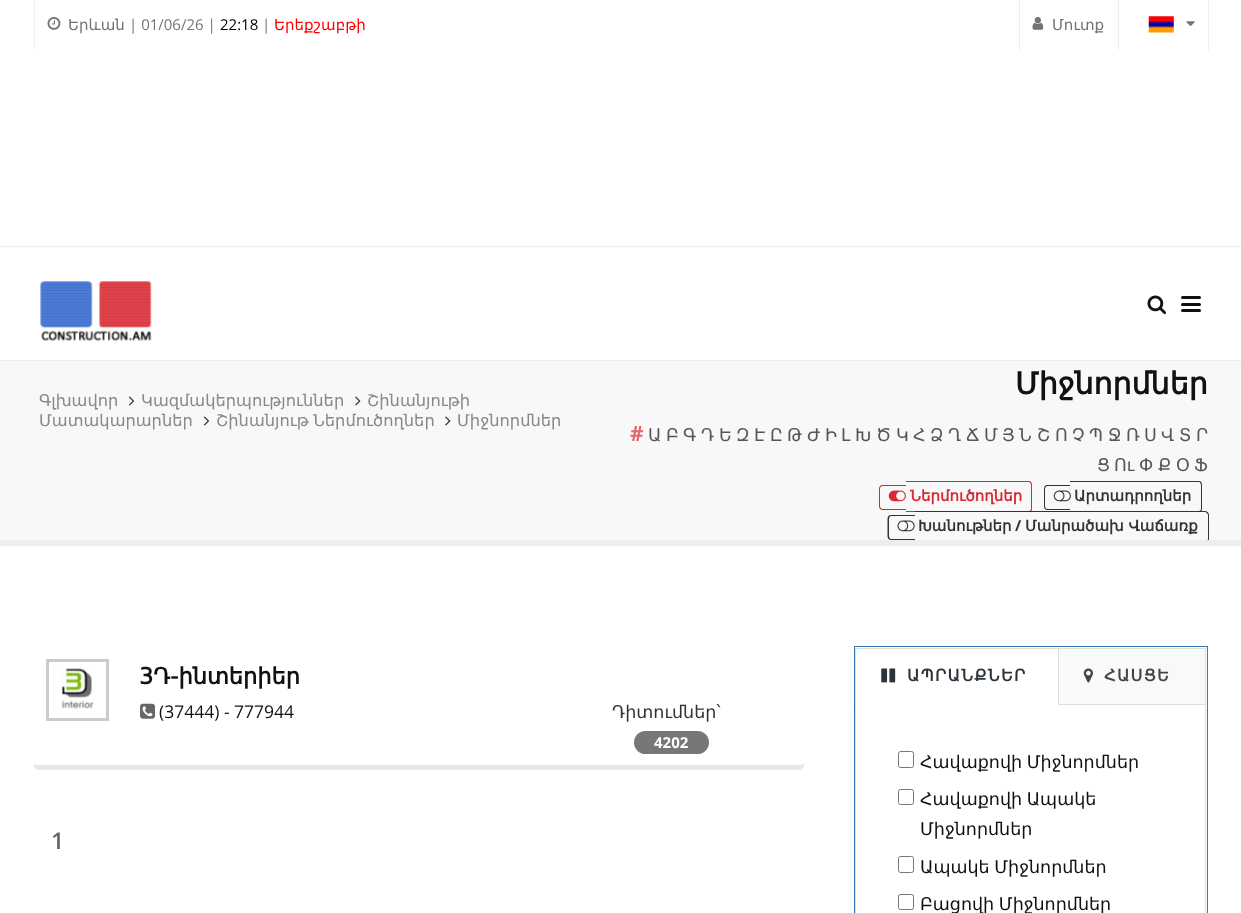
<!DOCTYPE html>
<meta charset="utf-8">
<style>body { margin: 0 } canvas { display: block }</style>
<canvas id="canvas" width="1241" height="913"></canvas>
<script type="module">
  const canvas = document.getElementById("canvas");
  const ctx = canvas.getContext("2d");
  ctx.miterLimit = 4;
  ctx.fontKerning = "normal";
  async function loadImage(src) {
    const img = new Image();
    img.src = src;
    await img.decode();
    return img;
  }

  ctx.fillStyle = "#ffffff";
  ctx.fillRect(0, 0, 1241, 913);
  ctx.fillStyle = "#eeeeee";
  ctx.fillRect(0, 246, 1241, 1);
  ctx.fillRect(34, 0, 1, 50);
  ctx.drawImage(await loadImage("img1.png"), 47, 17, 14, 13);
  ctx.font = "15px DejaVu Sans";
  ctx.fillStyle = "#747474";
  ctx.fillText("Երևան", 68, 30);
  ctx.font = "15px Open Sans";
  ctx.fillText("| 01/06/26 |", 129, 30);
  ctx.fillStyle = "#000000";
  ctx.fillText("22:18", 220, 30);
  ctx.fillStyle = "#747474";
  ctx.fillText("|", 262, 30);
  ctx.font = "15px DejaVu Sans";
  ctx.fillStyle = "#ff0000";
  ctx.fillText("Երեքշաբթի", 274, 30);
  ctx.fillStyle = "#eeeeee";
  ctx.fillRect(1019, 0, 1, 50);
  ctx.drawImage(await loadImage("img2.png"), 1032, 17, 12, 13);
  ctx.fillStyle = "#747474";
  ctx.fillText("Մուտք", 1052, 30);
  ctx.fillStyle = "#eeeeee";
  ctx.fillRect(1208, 0, 1, 50);
  ctx.fillRect(1118, 0, 1, 50);
  ctx.drawImage(await loadImage("img3.png"), 1148, 16, 26, 17);
  ctx.drawImage(await loadImage("img4.png"), 1186, 21, 9, 5);
  ctx.fillRect(0, 360, 1241, 1);
  ctx.drawImage(await loadImage("img5.png"), 40, 281, 112, 61);
  ctx.drawImage(await loadImage("img6.png"), 1147, 295, 20, 20);
  ctx.fillStyle = "#111111";
  ctx.beginPath();
  ctx.roundRect(1181, 303, 20, 3, 1.5);
  ctx.fill();
  ctx.beginPath();
  ctx.roundRect(1181, 296, 20, 3, 1.5);
  ctx.fill();
  ctx.beginPath();
  ctx.roundRect(1181, 309, 20, 3, 1.5);
  ctx.fill();
  ctx.fillStyle = "#f8f8f8";
  ctx.fillRect(0, 361, 1241, 179);
  ctx.fillStyle = "#eeeeee";
  ctx.fillRect(0, 540, 1241, 6);
  ctx.font = "16.25px DejaVu Sans";
  ctx.fillStyle = "#888888";
  ctx.fillText("Գլխավոր", 39, 406);
  ctx.drawImage(await loadImage("img7.png"), 128, 396, 7, 10);
  ctx.fillText("Կազմակերպություններ", 141, 406);
  ctx.drawImage(await loadImage("img8.png"), 355, 396, 6, 10);
  ctx.fillText("Շինանյութի", 367, 406);
  ctx.fillText("Մատակարարներ", 39, 426);
  ctx.drawImage(await loadImage("img7.png"), 203, 416, 7, 10);
  ctx.wordSpacing = "-1px";
  ctx.fillText("Շինանյութ Ներմուծողներ", 216, 426);
  ctx.drawImage(await loadImage("img8.png"), 445, 416, 6, 10);
  ctx.wordSpacing = "0px";
  ctx.fillText("Միջնորմներ", 457, 426);
  ctx.font = "bold 30px DejaVu Sans";
  ctx.fillStyle = "#111111";
  ctx.fillText("Միջնորմներ", 1015, 394);
  ctx.font = "bold 21px Open Sans";
  ctx.fillStyle = "#e2666d";
  ctx.fillText("#", 630, 441);
  ctx.font = "17.5px DejaVu Sans";
  ctx.fillStyle = "#565656";
  ctx.fillText("Ա", 648, 441);
  ctx.fillText("Բ", 666, 441);
  ctx.fillText("Գ", 683, 441);
  ctx.fillText("Դ", 701, 441);
  ctx.fillText("Ե", 719, 441);
  ctx.fillText("Զ", 736, 441);
  ctx.fillText("Է", 754, 441);
  ctx.fillText("Ը", 770, 441);
  ctx.fillText("Թ", 787, 441);
  ctx.fillText("Ժ", 807, 441);
  ctx.fillText("Ի", 825, 441);
  ctx.fillText("Լ", 841, 441);
  ctx.fillText("Խ", 855, 441);
  ctx.fillText("Ծ", 876, 441);
  ctx.fillText("Կ", 896, 441);
  ctx.fillText("Հ", 913, 441);
  ctx.fillText("Ձ", 930, 441);
  ctx.fillText("Ղ", 948, 441);
  ctx.fillText("Ճ", 966, 441);
  ctx.fillText("Մ", 984, 441);
  ctx.fillText("Յ", 1002, 441);
  ctx.fillText("Ն", 1019, 441);
  ctx.fillText("Շ", 1037, 441);
  ctx.fillText("Ո", 1055, 441);
  ctx.fillText("Չ", 1072, 441);
  ctx.fillText("Պ", 1089, 441);
  ctx.fillText("Ջ", 1108, 441);
  ctx.fillText("Ռ", 1126, 441);
  ctx.fillText("Ս", 1144, 441);
  ctx.fillText("Վ", 1161, 441);
  ctx.fillText("Տ", 1179, 441);
  ctx.fillText("Ր", 1196, 441);
  ctx.fillText("Ց", 1097, 471);
  ctx.fillText("Ու", 1114, 471);
  ctx.fillText("Փ", 1139, 471);
  ctx.fillText("Ք", 1158, 471);
  ctx.fillText("Օ", 1176, 471);
  ctx.fillText("Ֆ", 1194, 471);
  ctx.fillStyle = "#d82731";
  ctx.beginPath();
  ctx.moveTo(882.5, 485);
  ctx.lineTo(906, 485);
  ctx.lineTo(906, 510);
  ctx.lineTo(882.5, 510);
  ctx.bezierCurveTo(880.5, 510, 879, 508.5, 879, 506);
  ctx.lineTo(879, 489);
  ctx.bezierCurveTo(879, 486.5, 880.5, 485, 882.5, 485);
  ctx.closePath();
  ctx.moveTo(882.5, 486);
  ctx.lineTo(906, 486);
  ctx.lineTo(906, 509);
  ctx.lineTo(882.5, 509);
  ctx.bezierCurveTo(881, 509, 880, 507.5, 880, 506);
  ctx.lineTo(880, 489);
  ctx.bezierCurveTo(880, 487.5, 881, 486, 882.5, 486);
  ctx.closePath();
  ctx.fill("evenodd");
  ctx.beginPath();
  ctx.moveTo(906, 481);
  ctx.lineTo(1029, 481);
  ctx.bezierCurveTo(1031, 481, 1032, 483, 1032, 485);
  ctx.lineTo(1032, 509);
  ctx.bezierCurveTo(1032, 511, 1031, 512, 1029, 512);
  ctx.lineTo(906, 512);
  ctx.closePath();
  ctx.moveTo(906, 482);
  ctx.lineTo(1029, 482);
  ctx.bezierCurveTo(1030, 482, 1031, 484, 1031, 485);
  ctx.lineTo(1031, 509);
  ctx.bezierCurveTo(1031, 510, 1030, 511, 1029, 511);
  ctx.lineTo(906, 511);
  ctx.closePath();
  ctx.fill("evenodd");
  ctx.drawImage(await loadImage("img9.png"), 888, 490, 18, 12);
  ctx.font = "bold 15px DejaVu Sans";
  ctx.fillText("Ներմուծողներ", 910, 501);
  ctx.fillStyle = "#333333";
  ctx.beginPath();
  ctx.moveTo(1047.5, 485);
  ctx.lineTo(1070, 485);
  ctx.lineTo(1070, 510);
  ctx.lineTo(1047.5, 510);
  ctx.bezierCurveTo(1045.5, 510, 1044, 508.5, 1044, 506);
  ctx.lineTo(1044, 489);
  ctx.bezierCurveTo(1044, 486.5, 1045.5, 485, 1047.5, 485);
  ctx.closePath();
  ctx.moveTo(1047.5, 486);
  ctx.lineTo(1070, 486);
  ctx.lineTo(1070, 509);
  ctx.lineTo(1047.5, 509);
  ctx.bezierCurveTo(1046, 509, 1045, 507.5, 1045, 506);
  ctx.lineTo(1045, 489);
  ctx.bezierCurveTo(1045, 487.5, 1046, 486, 1047.5, 486);
  ctx.closePath();
  ctx.fill("evenodd");
  ctx.beginPath();
  ctx.moveTo(1070, 481);
  ctx.lineTo(1199, 481);
  ctx.bezierCurveTo(1201, 481, 1202, 483, 1202, 485);
  ctx.lineTo(1202, 509);
  ctx.bezierCurveTo(1202, 511, 1201, 512, 1199, 512);
  ctx.lineTo(1070, 512);
  ctx.closePath();
  ctx.moveTo(1070, 482);
  ctx.lineTo(1199, 482);
  ctx.bezierCurveTo(1200, 482, 1201, 484, 1201, 485);
  ctx.lineTo(1201, 509);
  ctx.bezierCurveTo(1201, 510, 1200, 511, 1199, 511);
  ctx.lineTo(1070, 511);
  ctx.closePath();
  ctx.fill("evenodd");
  ctx.drawImage(await loadImage("img10.png"), 1053, 490, 18, 12);
  ctx.fillText("Արտադրողներ", 1074, 501);
  ctx.beginPath();
  ctx.moveTo(891, 515);
  ctx.lineTo(915, 515);
  ctx.lineTo(915, 540);
  ctx.lineTo(891, 540);
  ctx.bezierCurveTo(889, 540, 887.5, 538.5, 887.5, 536);
  ctx.lineTo(887.5, 519);
  ctx.bezierCurveTo(887.5, 516.5, 889, 515, 891, 515);
  ctx.closePath();
  ctx.moveTo(891, 516);
  ctx.lineTo(915, 516);
  ctx.lineTo(915, 539);
  ctx.lineTo(891, 539);
  ctx.bezierCurveTo(890, 539, 889, 537.5, 889, 536);
  ctx.lineTo(889, 519);
  ctx.bezierCurveTo(889, 517.5, 890, 516, 891, 516);
  ctx.closePath();
  ctx.fill("evenodd");
  ctx.save();
  ctx.beginPath();
  ctx.rect(0, 361, 1241, 179);
  ctx.clip();
  ctx.fillStyle = "#f8f8f8";
  ctx.beginPath();
  ctx.roundRect(915, 511, 294, 32, [0, 4, 4, 0]);
  ctx.fill();
  ctx.fillStyle = "#333333";
  ctx.beginPath();
  ctx.moveTo(915, 511);
  ctx.lineTo(1205, 511);
  ctx.bezierCurveTo(1207, 511, 1209, 513, 1209, 515);
  ctx.lineTo(1209, 539);
  ctx.bezierCurveTo(1209, 541, 1207, 542, 1205, 542);
  ctx.lineTo(915, 542);
  ctx.closePath();
  ctx.moveTo(915, 512);
  ctx.lineTo(1205, 512);
  ctx.bezierCurveTo(1206, 512, 1208, 514, 1208, 515);
  ctx.lineTo(1208, 539);
  ctx.bezierCurveTo(1208, 540, 1206, 541, 1205, 541);
  ctx.lineTo(915, 541);
  ctx.closePath();
  ctx.fill("evenodd");
  ctx.restore();
  ctx.drawImage(await loadImage("img11.png"), 897, 520, 18, 12);
  ctx.fillText("Խանութներ", 918, 531);
  ctx.font = "bold 15px Open Sans";
  ctx.fillText("/", 1015, 531);
  ctx.font = "bold 15px DejaVu Sans";
  ctx.fillText("Մանրածախ Վաճառք", 1025, 531);
  ctx.fillStyle = "#e6e6e6";
  ctx.beginPath();
  ctx.moveTo(34, 649);
  ctx.lineTo(34, 766);
  ctx.bezierCurveTo(34, 768, 35, 769, 38, 769);
  ctx.lineTo(800, 769);
  ctx.bezierCurveTo(802, 769, 804, 768, 804, 766);
  ctx.lineTo(804, 763);
  ctx.bezierCurveTo(803, 764, 802, 765, 800, 765);
  ctx.lineTo(38, 765);
  ctx.bezierCurveTo(35, 765, 34, 764, 34, 762);
  ctx.closePath();
  ctx.fill();
  ctx.fillStyle = "#eeeeee";
  ctx.fillRect(36, 769, 767, 1);
  ctx.strokeStyle = "#cccccc";
  ctx.lineWidth = 3;
  ctx.strokeRect(47.5, 660.5, 60, 59);
  ctx.drawImage(await loadImage("img12.png"), 61, 668, 33, 41);
  ctx.font = "bold 22.5px DejaVu Sans";
  ctx.fillStyle = "#111111";
  ctx.fillText("3Դ-ինտերիեր", 139, 684);
  ctx.drawImage(await loadImage("img13.png"), 140, 703, 15, 16);
  ctx.font = "17.5px Open Sans";
  ctx.fillText("(37444) - 777944", 159, 718);
  ctx.font = "17.5px DejaVu Sans";
  ctx.fillStyle = "#333333";
  ctx.fillText("Դիտումներ՝", 612, 718);
  ctx.fillStyle = "#777777";
  ctx.beginPath();
  ctx.roundRect(634, 731, 75, 23, 11.5);
  ctx.fill();
  ctx.font = "bold 15px Open Sans";
  ctx.fillStyle = "#ffffff";
  ctx.fillText("4202", 654, 748);
  ctx.font = "600 23px Open Sans";
  ctx.fillStyle = "#646464";
  ctx.fillText("1", 51, 849);
  ctx.strokeStyle = "#337ab7";
  ctx.lineWidth = 1;
  ctx.strokeRect(854.5, 646.5, 353, 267);
  ctx.fillStyle = "#f8fafa";
  ctx.beginPath();
  ctx.rect(1058.5, 648.5, 147, 56);
  ctx.fill();
  ctx.strokeStyle = "#dddddd";
  ctx.stroke();
  ctx.fillStyle = "#dddddd";
  ctx.fillRect(855, 704, 1, 209);
  ctx.fillStyle = "#ffffff";
  ctx.fillRect(855, 649, 204, 56);
  ctx.fillStyle = "#dddddd";
  ctx.fillRect(855, 648, 204, 1);
  ctx.beginPath();
  ctx.moveTo(1059, 648);
  ctx.lineTo(1059, 705);
  ctx.lineTo(1058, 704);
  ctx.lineTo(1058, 649);
  ctx.closePath();
  ctx.fill();
  ctx.beginPath();
  ctx.moveTo(855, 705);
  ctx.lineTo(855, 648);
  ctx.lineTo(856, 649);
  ctx.lineTo(856, 704);
  ctx.closePath();
  ctx.fill();
  ctx.drawImage(await loadImage("img14.png"), 881, 668, 15, 15);
  ctx.letterSpacing = "1.25px";
  ctx.font = "bold 16.25px DejaVu Sans";
  ctx.fillStyle = "#2e343c";
  ctx.fillText("ԱՊՐԱՆՔՆԵՐ", 907, 681);
  ctx.drawImage(await loadImage("img15.png"), 1083, 668, 10, 15);
  ctx.fillStyle = "#444444";
  ctx.fillText("ՀԱՍՑԵ", 1104, 681);
  ctx.fillStyle = "#dddddd";
  ctx.fillRect(1205, 704, 1, 209);
  ctx.beginPath();
  ctx.roundRect(898.5, 751.5, 15, 16, 2);
  ctx.strokeStyle = "#767676";
  ctx.stroke();
  ctx.letterSpacing = "0px";
  ctx.wordSpacing = "-1px";
  ctx.font = "17.5px DejaVu Sans";
  ctx.fillStyle = "#111111";
  ctx.fillText("Հավաքովի Միջնորմներ", 920, 768);
  ctx.beginPath();
  ctx.roundRect(898.5, 789.5, 15, 15, 2);
  ctx.stroke();
  ctx.fillText("Հավաքովի Ապակե", 920, 805);
  ctx.wordSpacing = "0px";
  ctx.fillText("Միջնորմներ", 920, 835);
  ctx.beginPath();
  ctx.roundRect(898.5, 856.5, 15, 16, 2);
  ctx.stroke();
  ctx.wordSpacing = "-1px";
  ctx.fillText("Ապակե Միջնորմներ", 920, 873);
  ctx.beginPath();
  ctx.roundRect(898.5, 894.5, 15, 15, 2);
  ctx.stroke();
  ctx.fillText("Բացովի Միջնորմներ", 920, 910);
</script>
